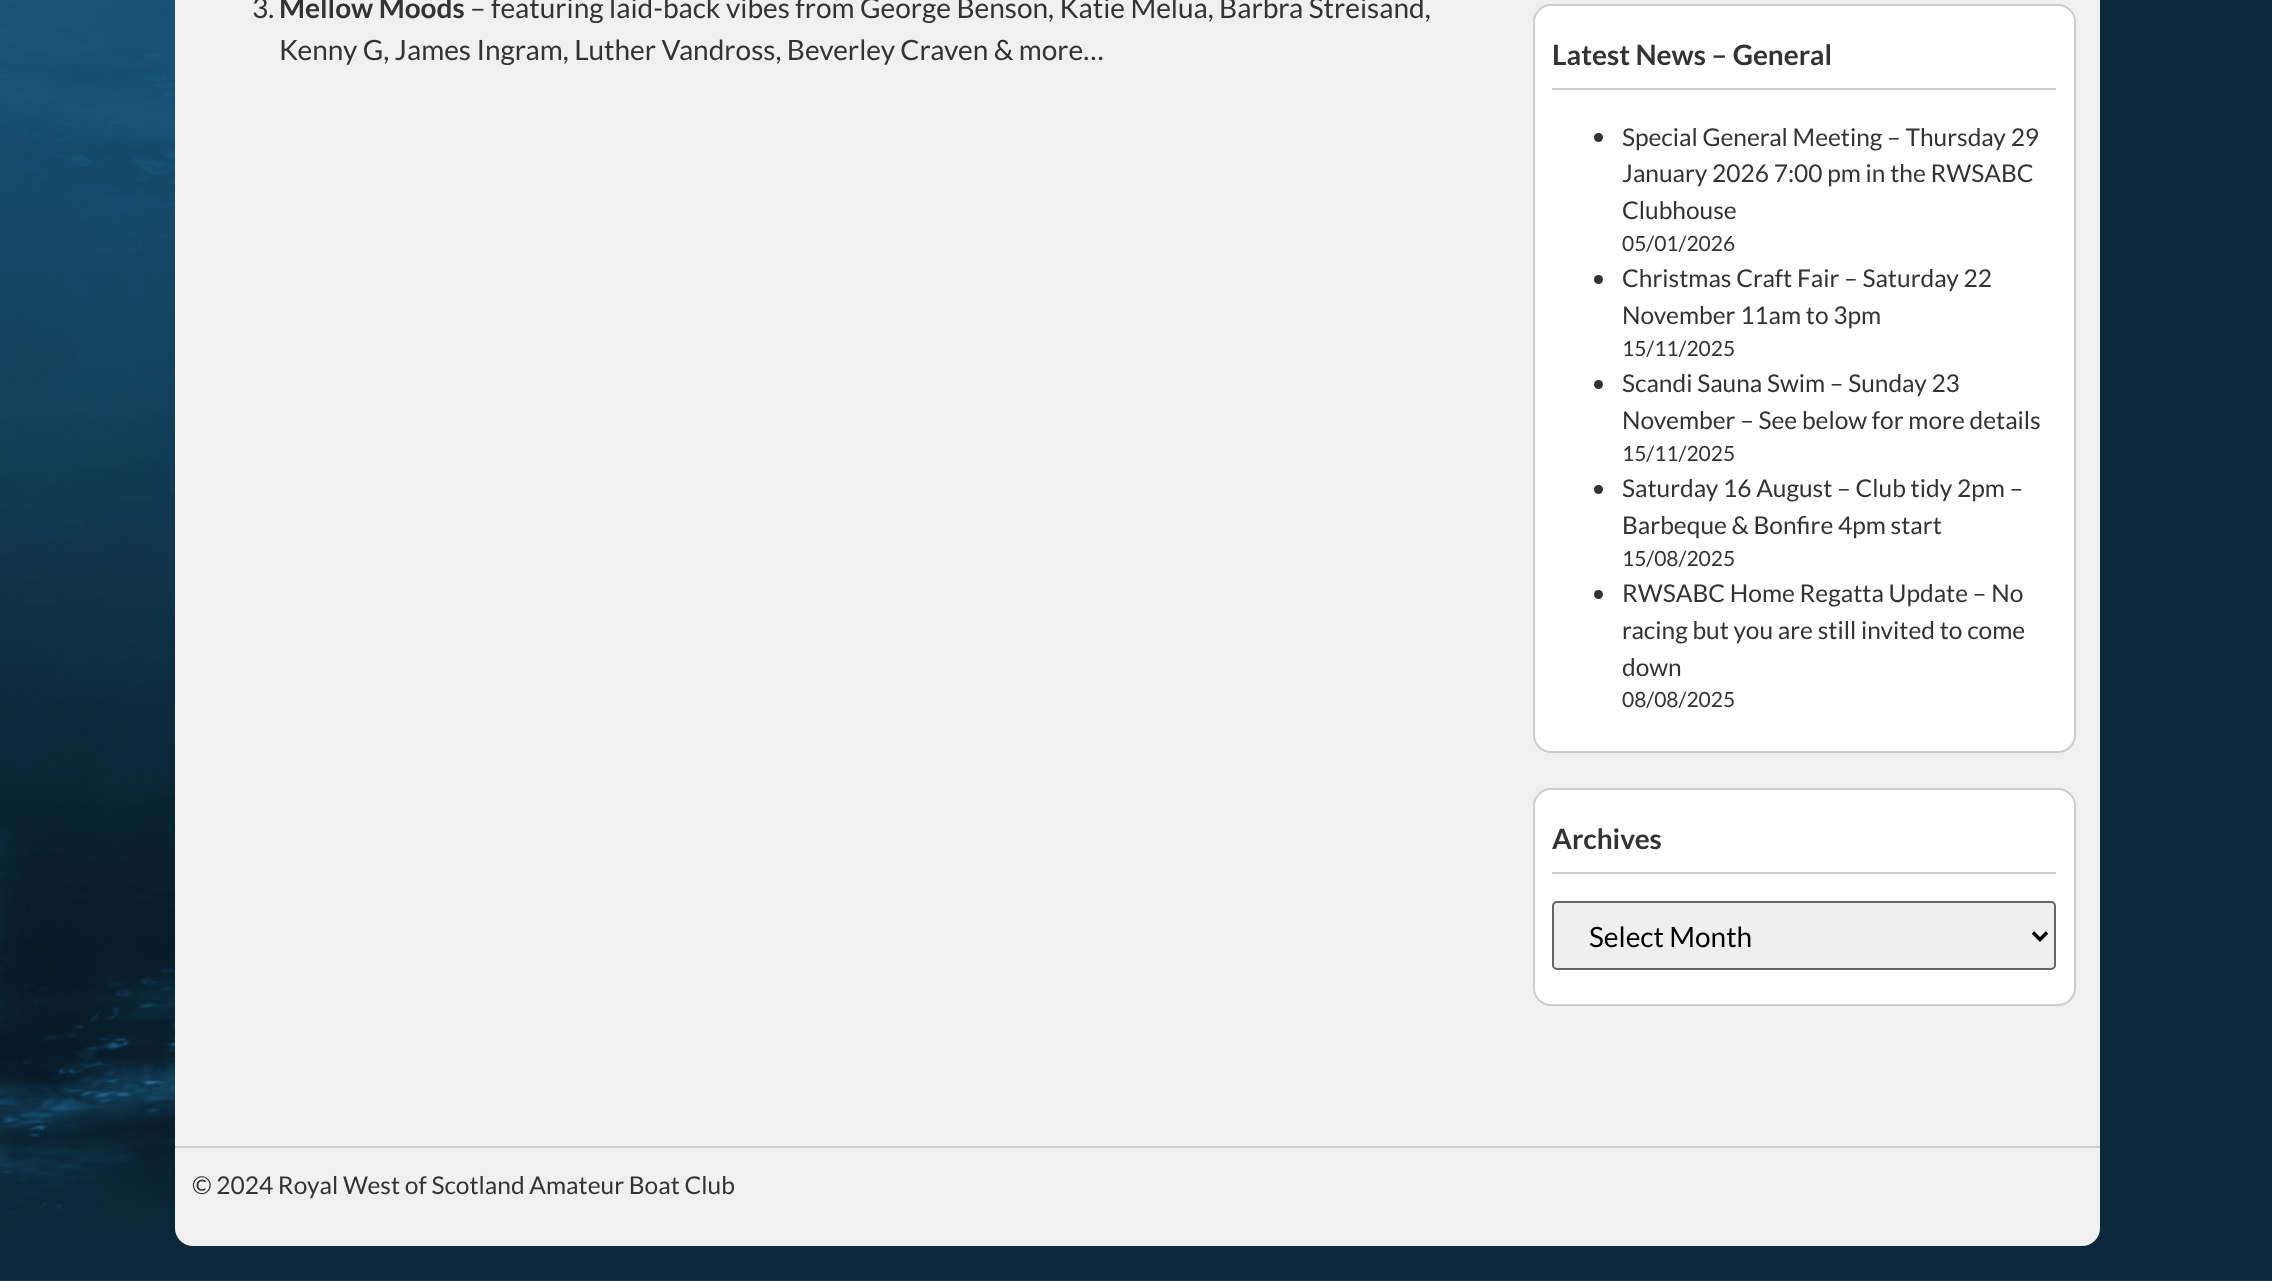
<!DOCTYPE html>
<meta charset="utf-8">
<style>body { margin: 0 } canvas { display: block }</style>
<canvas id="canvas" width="2272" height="1281"></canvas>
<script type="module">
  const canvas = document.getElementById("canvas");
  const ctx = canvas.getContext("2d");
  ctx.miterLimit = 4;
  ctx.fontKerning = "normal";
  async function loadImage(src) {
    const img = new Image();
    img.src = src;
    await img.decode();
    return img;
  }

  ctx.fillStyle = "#ffffff";
  ctx.fillRect(0, 0, 2272, 1281);
  ctx.drawImage(await loadImage("img1.png"), 0, 0, 2272, 1281);
  ctx.fillStyle = "#f0f0f0";
  ctx.fillRect(175, 0, 1925, 1094);
  ctx.font = "28px Lato";
  ctx.fillStyle = "#333333";
  ctx.fillText("3.", 252, 18);
  ctx.font = "bold 28px Lato";
  ctx.fillText("Mellow Moods", 279, 18);
  ctx.font = "28px Lato";
  ctx.fillText("– featuring laid-back vibes from George Benson, Katie Melua, Barbra Streisand,", 470, 18);
  ctx.fillText("Kenny G, James Ingram, Luther Vandross, Beverley Craven & more…", 279, 60);
  ctx.fillStyle = "#ffffff";
  ctx.beginPath();
  ctx.roundRect(1534, 5, 541, 747, 17);
  ctx.fill();
  ctx.strokeStyle = "#cccccc";
  ctx.lineWidth = 2;
  ctx.stroke();
  ctx.fillStyle = "#cccccc";
  ctx.fillRect(1552, 88, 504, 2);
  ctx.font = "bold 28px Lato";
  ctx.fillStyle = "#333333";
  ctx.fillText("Latest News – General", 1552, 65);
  ctx.beginPath();
  ctx.arc(1598.5, 137.5, 4.5, 0, Math.PI * 2);
  ctx.fill();
  ctx.font = "24.5px Lato";
  ctx.fillText("Special General Meeting – Thursday 29", 1622, 146);
  ctx.fillText("January 2026 7:00 pm in the RWSABC", 1622, 182);
  ctx.fillText("Clubhouse", 1622, 219);
  ctx.font = "21px Lato";
  ctx.fillText("05/01/2026", 1622, 251);
  ctx.beginPath();
  ctx.arc(1598.5, 279.5, 4.5, 0, Math.PI * 2);
  ctx.fill();
  ctx.font = "24.5px Lato";
  ctx.fillText("Christmas Craft Fair – Saturday 22", 1622, 287);
  ctx.fillText("November 11am to 3pm", 1622, 324);
  ctx.font = "21px Lato";
  ctx.fillText("15/11/2025", 1622, 356);
  ctx.beginPath();
  ctx.arc(1598.5, 384.5, 4.5, 0, Math.PI * 2);
  ctx.fill();
  ctx.font = "24.5px Lato";
  ctx.fillText("Scandi Sauna Swim – Sunday 23", 1622, 392);
  ctx.fillText("November – See below for more details", 1622, 429);
  ctx.font = "21px Lato";
  ctx.fillText("15/11/2025", 1622, 461);
  ctx.beginPath();
  ctx.arc(1598.5, 489.5, 4.5, 0, Math.PI * 2);
  ctx.fill();
  ctx.font = "24.5px Lato";
  ctx.fillText("Saturday 16 August – Club tidy 2pm –", 1622, 497);
  ctx.fillText("Barbeque & Bonfire 4pm start", 1622, 534);
  ctx.font = "21px Lato";
  ctx.fillText("15/08/2025", 1622, 566);
  ctx.beginPath();
  ctx.arc(1598.5, 594.5, 4.5, 0, Math.PI * 2);
  ctx.fill();
  ctx.font = "24.5px Lato";
  ctx.fillText("RWSABC Home Regatta Update – No", 1622, 602);
  ctx.fillText("racing but you are still invited to come", 1622, 639);
  ctx.fillText("down", 1622, 676);
  ctx.font = "21px Lato";
  ctx.fillText("08/08/2025", 1622, 707);
  ctx.fillStyle = "#ffffff";
  ctx.beginPath();
  ctx.roundRect(1534, 789, 541, 216, 17);
  ctx.fill();
  ctx.stroke();
  ctx.fillStyle = "#cccccc";
  ctx.fillRect(1552, 872, 504, 2);
  ctx.font = "bold 28px Lato";
  ctx.fillStyle = "#333333";
  ctx.fillText("Archives", 1552, 849);
  ctx.fillStyle = "#efefef";
  ctx.beginPath();
  ctx.roundRect(1553, 902, 502, 67, 4);
  ctx.fill();
  ctx.strokeStyle = "#666666";
  ctx.stroke();
  ctx.beginPath();
  ctx.moveTo(2033, 932.5);
  ctx.lineTo(2040, 939.5);
  ctx.lineTo(2047, 932.5);
  ctx.strokeStyle = "#000000";
  ctx.lineWidth = 3.5;
  ctx.stroke();
  ctx.font = "28px Lato";
  ctx.fillStyle = "#000000";
  ctx.fillText("Select Month", 1589, 947);
  ctx.fillStyle = "#f0f0f0";
  ctx.beginPath();
  ctx.roundRect(175, 1094, 1925, 152, [0, 0, 18, 18]);
  ctx.fill();
  ctx.fillStyle = "#cccccc";
  ctx.fillRect(175, 1146, 1925, 2);
  ctx.font = "24.5px Lato";
  ctx.fillStyle = "#333333";
  ctx.fillText("© 2024 Royal West of Scotland Amateur Boat Club", 192, 1194);
</script>
